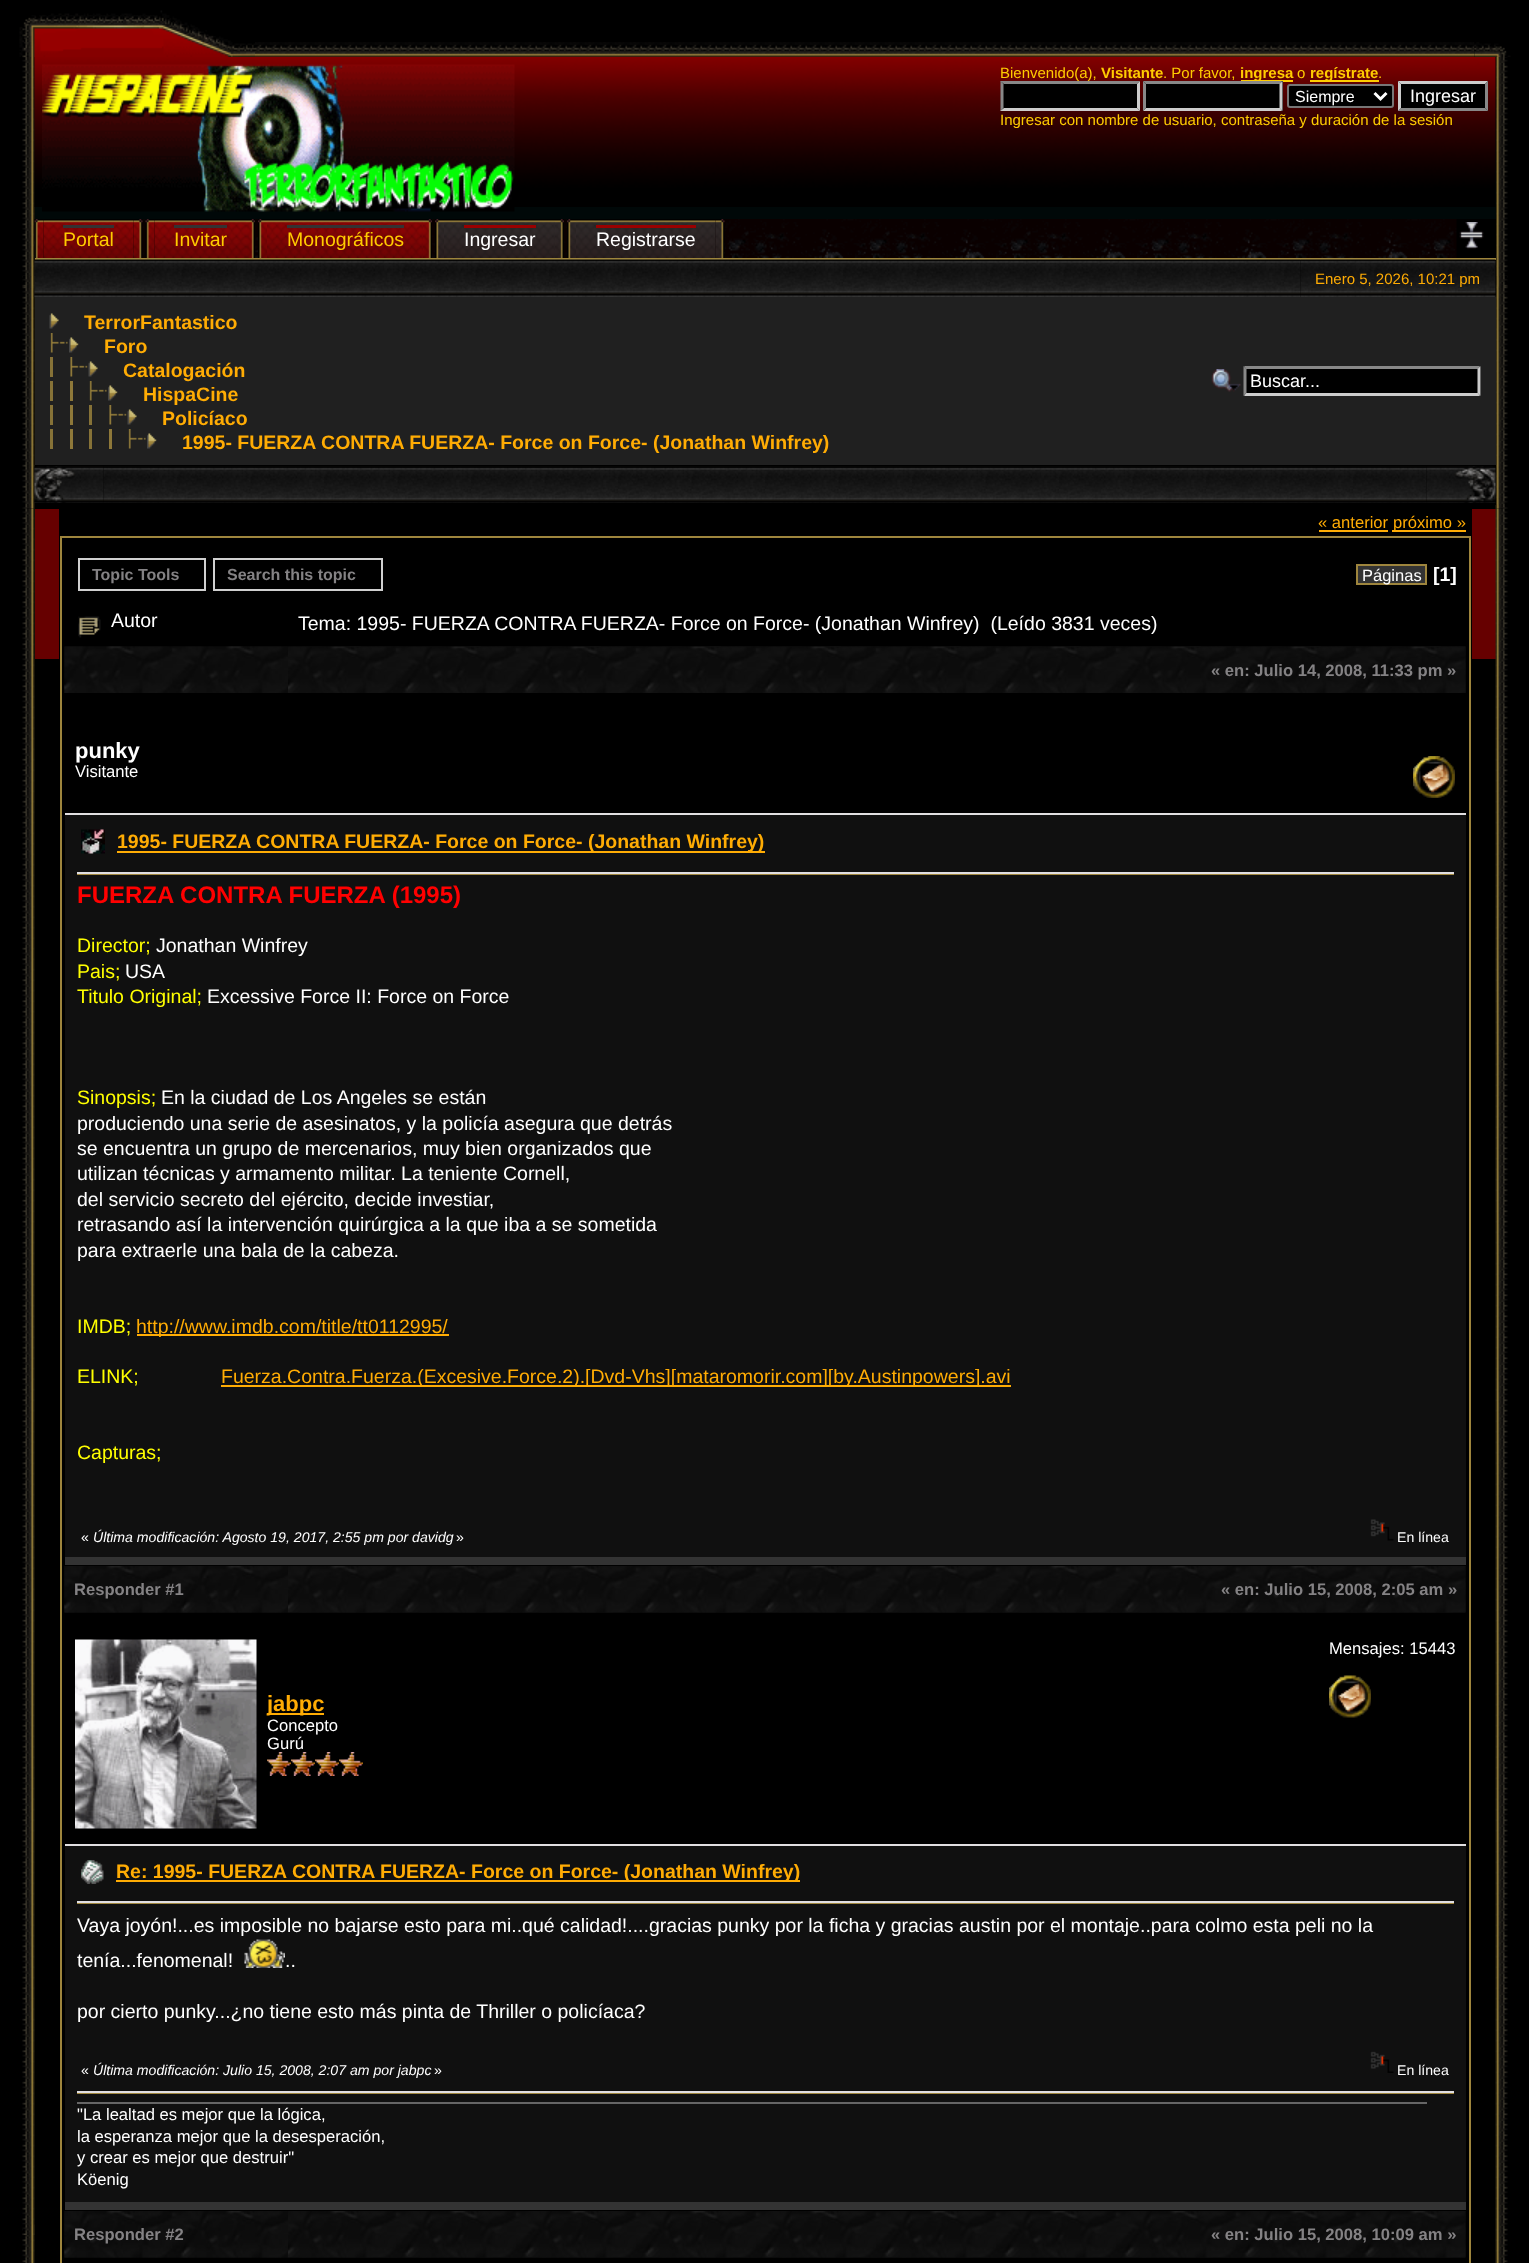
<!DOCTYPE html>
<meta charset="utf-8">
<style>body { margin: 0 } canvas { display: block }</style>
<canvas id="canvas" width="1529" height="2263"></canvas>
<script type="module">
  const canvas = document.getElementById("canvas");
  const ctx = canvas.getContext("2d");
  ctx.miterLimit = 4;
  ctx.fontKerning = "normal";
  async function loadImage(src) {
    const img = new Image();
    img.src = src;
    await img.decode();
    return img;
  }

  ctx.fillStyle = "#000000";
  ctx.fillRect(0, 0, 1529, 2263);
  ctx.drawImage(await loadImage("img1.png"), 19, 10, 236, 47);
  ctx.drawImage(await loadImage("img2.png"), 255, 42, 1220, 15);
  ctx.drawImage(await loadImage("img3.png"), 1474, 42, 37, 15);
  ctx.drawImage(await loadImage("img4.png"), 22, 57, 13, 447);
  ctx.drawImage(await loadImage("img5.png"), 22, 276, 13, 11);
  ctx.fillStyle = "#000808";
  ctx.fillRect(35, 57, 1461, 162);
  ctx.drawImage(await loadImage("img6.png"), 34, 57, 1462, 150);
  ctx.drawImage(await loadImage("img7.png"), 42, 64, 473, 148);
  ctx.font = "15px Liberation Sans";
  ctx.fillStyle = "#ffcc00";
  ctx.fillText("Bienvenido(a),", 1000, 78);
  ctx.font = "bold 15px Liberation Sans";
  ctx.fillText("Visitante", 1101, 78);
  ctx.font = "15px Liberation Sans";
  ctx.fillText(". Por favor,", 1163, 78);
  ctx.fillRect(1241, 80, 52, 2);
  ctx.font = "bold 15px Liberation Sans";
  ctx.fillText("ingresa", 1240, 78);
  ctx.font = "15px Liberation Sans";
  ctx.fillText("o", 1297, 78);
  ctx.fillRect(1310, 80, 69, 2);
  ctx.font = "bold 15px Liberation Sans";
  ctx.fillText("regístrate", 1310, 78);
  ctx.font = "15px Liberation Sans";
  ctx.fillText(".", 1378, 78);
  ctx.fillStyle = "#000000";
  ctx.fillRect(1001, 81, 139, 30);
  ctx.fillStyle = "#888888";
  ctx.beginPath();
  ctx.moveTo(1000, 81);
  ctx.lineTo(1140, 81);
  ctx.lineTo(1137, 84);
  ctx.lineTo(1004, 84);
  ctx.closePath();
  ctx.fill();
  ctx.fillStyle = "#cccccc";
  ctx.beginPath();
  ctx.moveTo(1140, 81);
  ctx.lineTo(1140, 111);
  ctx.lineTo(1137, 108);
  ctx.lineTo(1137, 84);
  ctx.closePath();
  ctx.fill();
  ctx.beginPath();
  ctx.moveTo(1140, 111);
  ctx.lineTo(1000, 111);
  ctx.lineTo(1004, 108);
  ctx.lineTo(1137, 108);
  ctx.closePath();
  ctx.fill();
  ctx.fillStyle = "#888888";
  ctx.beginPath();
  ctx.moveTo(1000.5, 111);
  ctx.lineTo(1000.5, 81);
  ctx.lineTo(1003.5, 84);
  ctx.lineTo(1003.5, 108);
  ctx.closePath();
  ctx.fill();
  ctx.fillStyle = "#000000";
  ctx.fillRect(1143, 81, 140, 30);
  ctx.fillStyle = "#888888";
  ctx.beginPath();
  ctx.moveTo(1143, 81);
  ctx.lineTo(1282, 81);
  ctx.lineTo(1280, 84);
  ctx.lineTo(1146, 84);
  ctx.closePath();
  ctx.fill();
  ctx.fillStyle = "#cccccc";
  ctx.beginPath();
  ctx.moveTo(1282.5, 81);
  ctx.lineTo(1282.5, 111);
  ctx.lineTo(1279.5, 108);
  ctx.lineTo(1279.5, 84);
  ctx.closePath();
  ctx.fill();
  ctx.beginPath();
  ctx.moveTo(1282, 111);
  ctx.lineTo(1143, 111);
  ctx.lineTo(1146, 108);
  ctx.lineTo(1280, 108);
  ctx.closePath();
  ctx.fill();
  ctx.fillStyle = "#888888";
  ctx.beginPath();
  ctx.moveTo(1143, 111);
  ctx.lineTo(1143, 81);
  ctx.lineTo(1146, 84);
  ctx.lineTo(1146, 108);
  ctx.closePath();
  ctx.fill();
  ctx.fillStyle = "#000000";
  ctx.beginPath();
  ctx.roundRect(1288, 85, 105, 22, 2);
  ctx.fill();
  ctx.strokeStyle = "#767676";
  ctx.lineWidth = 2;
  ctx.stroke();
  ctx.beginPath();
  ctx.moveTo(1374.5, 93);
  ctx.lineTo(1380.5, 99);
  ctx.lineTo(1386.5, 93);
  ctx.strokeStyle = "#ffffff";
  ctx.lineWidth = 3;
  ctx.stroke();
  ctx.font = "16px Liberation Sans";
  ctx.fillStyle = "#ffffff";
  ctx.fillText("Siempre", 1295, 102);
  ctx.fillStyle = "#000000";
  ctx.fillRect(1398, 81, 90, 30);
  ctx.fillStyle = "#cccccc";
  ctx.beginPath();
  ctx.moveTo(1398, 81);
  ctx.lineTo(1488, 81);
  ctx.lineTo(1485, 84);
  ctx.lineTo(1401, 84);
  ctx.closePath();
  ctx.fill();
  ctx.fillStyle = "#888888";
  ctx.beginPath();
  ctx.moveTo(1488, 81);
  ctx.lineTo(1488, 111);
  ctx.lineTo(1485, 108);
  ctx.lineTo(1485, 84);
  ctx.closePath();
  ctx.fill();
  ctx.beginPath();
  ctx.moveTo(1488, 111);
  ctx.lineTo(1398, 111);
  ctx.lineTo(1401, 108);
  ctx.lineTo(1485, 108);
  ctx.closePath();
  ctx.fill();
  ctx.fillStyle = "#cccccc";
  ctx.beginPath();
  ctx.moveTo(1398, 111);
  ctx.lineTo(1398, 81);
  ctx.lineTo(1401, 84);
  ctx.lineTo(1401, 108);
  ctx.closePath();
  ctx.fill();
  ctx.font = "18px Liberation Sans";
  ctx.fillStyle = "#ffffff";
  ctx.fillText("Ingresar", 1410, 102);
  ctx.font = "15px Liberation Sans";
  ctx.fillStyle = "#ffcc00";
  ctx.fillText("Ingresar con nombre de usuario, contraseña y duración de la sesión", 1000, 125);
  ctx.drawImage(await loadImage("img8.png"), 34, 219, 1423, 39);
  ctx.drawImage(await loadImage("img9.png"), 34, 219, 10, 39);
  ctx.drawImage(await loadImage("img10.png"), 43, 219, 91, 39);
  ctx.font = "19.5px Liberation Sans";
  ctx.fillText("Portal", 63, 246);
  ctx.fillStyle = "#333333";
  ctx.fillRect(63, 225, 51, 3);
  ctx.drawImage(await loadImage("img11.png"), 133, 219, 10, 39);
  ctx.drawImage(await loadImage("img12.png"), 145, 219, 10, 39);
  ctx.drawImage(await loadImage("img13.png"), 154, 219, 92, 39);
  ctx.fillStyle = "#ffcc00";
  ctx.fillText("Invitar", 174, 246);
  ctx.fillStyle = "#333333";
  ctx.fillRect(174, 225, 53, 3);
  ctx.drawImage(await loadImage("img14.png"), 246, 219, 9, 39);
  ctx.drawImage(await loadImage("img15.png"), 258, 219, 9, 39);
  ctx.drawImage(await loadImage("img16.png"), 267, 219, 156, 39);
  ctx.fillStyle = "#ffcc00";
  ctx.fillText("Monográficos", 287, 246);
  ctx.fillStyle = "#333333";
  ctx.fillRect(287, 225, 117, 3);
  ctx.drawImage(await loadImage("img17.png"), 423, 219, 9, 39);
  ctx.drawImage(await loadImage("img18.png"), 435, 219, 9, 39);
  ctx.drawImage(await loadImage("img19.png"), 444, 219, 111, 39);
  ctx.fillStyle = "#ffffff";
  ctx.fillText("Ingresar", 464, 246);
  ctx.fillStyle = "#990000";
  ctx.fillRect(464, 225, 72, 3);
  ctx.drawImage(await loadImage("img20.png"), 555, 219, 9, 39);
  ctx.drawImage(await loadImage("img18.png"), 567, 219, 9, 39);
  ctx.drawImage(await loadImage("img21.png"), 576, 219, 140, 39);
  ctx.fillStyle = "#ffffff";
  ctx.fillText("Registrarse", 596, 246);
  ctx.fillStyle = "#990000";
  ctx.fillRect(596, 225, 100, 3);
  ctx.drawImage(await loadImage("img22.png"), 715, 219, 10, 39);
  ctx.drawImage(await loadImage("img23.png"), 1459, 222, 25, 27);
  ctx.fillStyle = "#9e853d";
  ctx.fillRect(35, 258, 1461, 2);
  ctx.drawImage(await loadImage("img24.png"), 34, 259, 1267, 38);
  ctx.drawImage(await loadImage("img25.png"), 1300, 259, 196, 38);
  ctx.font = "15px Liberation Sans";
  ctx.fillStyle = "#ffac04";
  ctx.fillText("Enero 5, 2026, 10:21 pm", 1315, 284);
  ctx.fillStyle = "#202020";
  ctx.fillRect(35, 297, 1461, 168);
  ctx.drawImage(await loadImage("img26.png"), 49, 313, 10, 16);
  ctx.font = "bold 19.5px Liberation Sans";
  ctx.fillStyle = "#ffac04";
  ctx.fillText("TerrorFantastico", 84, 329);
  ctx.drawImage(await loadImage("img27.png"), 50, 333, 18, 20);
  ctx.drawImage(await loadImage("img28.png"), 69, 337, 10, 16);
  ctx.fillText("Foro", 104, 353);
  ctx.drawImage(await loadImage("img29.png"), 70, 357, 18, 20);
  ctx.drawImage(await loadImage("img26.png"), 88, 361, 10, 16);
  ctx.fillText("Catalogación", 123, 377);
  ctx.fillStyle = "#867237";
  ctx.fillRect(50, 357, 3, 20);
  ctx.drawImage(await loadImage("img27.png"), 89, 381, 18, 20);
  ctx.drawImage(await loadImage("img28.png"), 108, 385, 10, 16);
  ctx.fillStyle = "#ffac04";
  ctx.fillText("HispaCine", 143, 401);
  ctx.fillStyle = "#867237";
  ctx.fillRect(50, 381, 3, 20);
  ctx.fillStyle = "#8e7839";
  ctx.fillRect(70, 381, 3, 20);
  ctx.drawImage(await loadImage("img29.png"), 109, 405, 18, 20);
  ctx.drawImage(await loadImage("img26.png"), 127, 409, 10, 16);
  ctx.fillStyle = "#ffac04";
  ctx.fillText("Policíaco", 162, 425);
  ctx.fillStyle = "#867237";
  ctx.fillRect(50, 405, 3, 20);
  ctx.fillStyle = "#8e7839";
  ctx.fillRect(70, 405, 3, 20);
  ctx.fillStyle = "#867237";
  ctx.fillRect(89, 405, 3, 20);
  ctx.drawImage(await loadImage("img27.png"), 128, 429, 18, 20);
  ctx.drawImage(await loadImage("img28.png"), 147, 433, 10, 16);
  ctx.fillStyle = "#ffac04";
  ctx.fillText("1995- FUERZA CONTRA FUERZA- Force on Force- (Jonathan Winfrey)", 182, 449);
  ctx.fillStyle = "#867237";
  ctx.fillRect(50, 429, 3, 20);
  ctx.fillStyle = "#8e7839";
  ctx.fillRect(70, 429, 3, 20);
  ctx.fillStyle = "#867237";
  ctx.fillRect(89, 429, 3, 20);
  ctx.fillStyle = "#8e7839";
  ctx.fillRect(109, 429, 3, 20);
  ctx.drawImage(await loadImage("img30.png"), 1211, 369, 30, 23);
  ctx.fillStyle = "#000000";
  ctx.fillRect(1244, 366, 237, 30);
  ctx.fillStyle = "#888888";
  ctx.beginPath();
  ctx.moveTo(1244, 366);
  ctx.lineTo(1480, 366);
  ctx.lineTo(1478, 369);
  ctx.lineTo(1246, 369);
  ctx.closePath();
  ctx.fill();
  ctx.fillStyle = "#cccccc";
  ctx.beginPath();
  ctx.moveTo(1480.5, 366);
  ctx.lineTo(1480.5, 396);
  ctx.lineTo(1477.5, 393);
  ctx.lineTo(1477.5, 369);
  ctx.closePath();
  ctx.fill();
  ctx.beginPath();
  ctx.moveTo(1480, 396);
  ctx.lineTo(1244, 396);
  ctx.lineTo(1246, 393);
  ctx.lineTo(1478, 393);
  ctx.closePath();
  ctx.fill();
  ctx.fillStyle = "#888888";
  ctx.beginPath();
  ctx.moveTo(1243.5, 396);
  ctx.lineTo(1243.5, 366);
  ctx.lineTo(1246.5, 369);
  ctx.lineTo(1246.5, 393);
  ctx.closePath();
  ctx.fill();
  ctx.font = "18px Liberation Sans";
  ctx.fillStyle = "#ffffff";
  ctx.fillText("Buscar...", 1250, 387);
  ctx.drawImage(await loadImage("img37.png"), 1495, 504, 13, 5);
  ctx.fillStyle = "#000000";
  ctx.fillRect(1495, 504, 1, 1);
  ctx.drawImage(await loadImage("img31.png"), 34, 466, 70, 37);
  ctx.drawImage(await loadImage("img32.png"), 103, 466, 1324, 37);
  ctx.drawImage(await loadImage("img33.png"), 1426, 466, 70, 37);
  ctx.drawImage(await loadImage("img34.png"), 1496, 57, 12, 447);
  ctx.drawImage(await loadImage("img35.png"), 1496, 276, 12, 11);
  ctx.drawImage(await loadImage("img36.png"), 22, 504, 13, 5);
  ctx.drawImage(await loadImage("img38.png"), 22, 508, 13, 1755);
  ctx.drawImage(await loadImage("img39.png"), 22, 2224, 13, 11);
  ctx.fillStyle = "#660000";
  ctx.fillRect(35, 509, 24, 150);
  ctx.font = "16.6px Liberation Sans";
  ctx.fillStyle = "#ffac04";
  ctx.fillText("« anterior", 1318, 528);
  ctx.fillRect(1319, 530, 69, 2);
  ctx.fillRect(1392, 530, 74, 2);
  ctx.fillText("próximo »", 1393, 528);
  ctx.fillStyle = "#9e853d";
  ctx.fillRect(60, 536, 1410, 2);
  ctx.fillRect(1469, 536, 2, 1727);
  ctx.fillRect(60, 536, 2, 1727);
  ctx.strokeStyle = "#d0d0d0";
  ctx.lineWidth = 2;
  ctx.strokeRect(79, 559, 126, 31);
  ctx.font = "bold 16px Liberation Sans";
  ctx.fillStyle = "#848284";
  ctx.fillText("Topic Tools", 92, 580);
  ctx.strokeRect(214, 559, 168, 31);
  ctx.fillText("Search this topic", 227, 580);
  ctx.fillStyle = "#333333";
  ctx.beginPath();
  ctx.rect(1357, 565, 69, 19);
  ctx.fill();
  ctx.strokeStyle = "#9e853d";
  ctx.stroke();
  ctx.font = "16.5px Liberation Sans";
  ctx.fillStyle = "#ffffff";
  ctx.fillText("Páginas", 1362, 581);
  ctx.font = "bold 19.5px Liberation Sans";
  ctx.fillText("[1]", 1433, 581);
  ctx.drawImage(await loadImage("img40.png"), 78, 616, 23, 22);
  ctx.font = "19.5px Liberation Sans";
  ctx.fillText("Autor", 111, 627);
  ctx.fillText("Tema: 1995- FUERZA CONTRA FUERZA- Force on Force- (Jonathan Winfrey)  (Leído 3831 veces)", 298, 630);
  ctx.drawImage(await loadImage("img41.png"), 64, 646, 224, 47);
  ctx.drawImage(await loadImage("img42.png"), 288, 646, 1178, 47);
  ctx.font = "bold 16.6px Liberation Sans";
  ctx.fillStyle = "#848284";
  ctx.fillText("« en: Julio 14, 2008, 11:33 pm »", 1211, 676);
  ctx.fillStyle = "#101010";
  ctx.fillRect(65, 815, 1401, 742);
  ctx.fillStyle = "#e1dfe1";
  ctx.fillRect(65, 813, 1401, 2);
  ctx.font = "bold 22px Liberation Sans";
  ctx.fillStyle = "#ffffff";
  ctx.fillText("punky", 75, 758);
  ctx.font = "16.6px Liberation Sans";
  ctx.fillText("Visitante", 75, 777);
  ctx.drawImage(await loadImage("img43.png"), 1413, 756, 42, 42);
  ctx.drawImage(await loadImage("img44.png"), 81, 829, 24, 25);
  ctx.fillStyle = "#ffac04";
  ctx.fillRect(117, 851, 648, 2);
  ctx.font = "bold 19.5px Liberation Sans";
  ctx.fillText("1995- FUERZA CONTRA FUERZA- Force on Force- (Jonathan Winfrey)", 117, 848);
  ctx.fillStyle = "#9e853d";
  ctx.fillRect(77, 874, 1377, 1);
  ctx.fillStyle = "#e1dfe1";
  ctx.fillRect(77, 872, 1377, 2);
  ctx.font = "bold 24px Liberation Sans";
  ctx.fillStyle = "#ff0000";
  ctx.fillText("FUERZA CONTRA FUERZA (1995)", 77, 903);
  ctx.font = "19.5px Liberation Sans";
  ctx.fillStyle = "#ffff00";
  ctx.fillText("Director;", 77, 952);
  ctx.fillStyle = "#ffffff";
  ctx.fillText("Jonathan Winfrey", 156, 952);
  ctx.fillStyle = "#ffff00";
  ctx.fillText("Pais;", 77, 978);
  ctx.fillStyle = "#ffffff";
  ctx.fillText("USA", 125, 978);
  ctx.fillStyle = "#ffff00";
  ctx.fillText("Titulo Original;", 77, 1003);
  ctx.fillStyle = "#ffffff";
  ctx.fillText("Excessive Force II: Force on Force", 207, 1003);
  ctx.fillStyle = "#ffff00";
  ctx.fillText("Sinopsis;", 77, 1104);
  ctx.fillStyle = "#ffffff";
  ctx.fillText("En la ciudad de Los Angeles se están", 161, 1104);
  ctx.fillText("produciendo una serie de asesinatos, y la policía asegura que detrás", 77, 1130);
  ctx.fillText("se encuentra un grupo de mercenarios, muy bien organizados que", 77, 1155);
  ctx.fillText("utilizan técnicas y armamento militar. La teniente Cornell,", 77, 1180);
  ctx.fillText("del servicio secreto del ejército, decide investiar,", 77, 1206);
  ctx.fillText("retrasando así la intervención quirúrgica a la que iba a se sometida", 77, 1231);
  ctx.fillText("para extraerle una bala de la cabeza.", 77, 1257);
  ctx.fillStyle = "#ffff00";
  ctx.fillText("IMDB;", 77, 1333);
  ctx.fillStyle = "#ffac04";
  ctx.fillRect(137, 1334, 312, 2);
  ctx.fillText("http://www.imdb.com/title/tt0112995/", 136, 1333);
  ctx.fillStyle = "#ffff00";
  ctx.fillText("ELINK;", 77, 1383);
  ctx.fillStyle = "#ffac04";
  ctx.fillRect(221, 1385, 790, 2);
  ctx.fillText("Fuerza.Contra.Fuerza.(Excesive.Force.2).[Dvd-Vhs][mataromorir.com][by.Austinpowers].avi", 221, 1383);
  ctx.fillStyle = "#ffff00";
  ctx.fillText("Capturas;", 77, 1459);
  ctx.font = "14.1px Liberation Sans";
  ctx.fillStyle = "#ffffff";
  ctx.fillText("«", 81, 1542);
  ctx.font = "italic 14.1px Liberation Sans";
  ctx.fillText("Última modificación: Agosto 19, 2017, 2:55 pm por davidg", 93, 1542);
  ctx.font = "14.1px Liberation Sans";
  ctx.fillText("»", 456, 1542);
  ctx.drawImage(await loadImage("img45.png"), 1370, 1519, 24, 22);
  ctx.fillText("En línea", 1397, 1542);
  ctx.fillStyle = "#333333";
  ctx.fillRect(65, 1557, 1401, 8);
  ctx.drawImage(await loadImage("img46.png"), 64, 1566, 224, 47);
  ctx.font = "bold 16.6px Liberation Sans";
  ctx.fillStyle = "#848284";
  ctx.fillText("Responder #1", 74, 1595);
  ctx.drawImage(await loadImage("img47.png"), 288, 1566, 1178, 47);
  ctx.fillText("« en: Julio 15, 2008, 2:05 am »", 1221, 1595);
  ctx.fillStyle = "#101010";
  ctx.fillRect(65, 1846, 1401, 356);
  ctx.fillStyle = "#e1dfe1";
  ctx.fillRect(65, 1844, 1401, 2);
  ctx.drawImage(await loadImage("img48.png"), 75, 1639, 182, 190);
  ctx.font = "16.6px Liberation Sans";
  ctx.fillStyle = "#ffffff";
  ctx.fillText("Mensajes: 15443", 1329, 1654);
  ctx.drawImage(await loadImage("img49.png"), 1329, 1675, 42, 43);
  ctx.fillStyle = "#ffac04";
  ctx.fillRect(267, 1713, 57, 2);
  ctx.font = "bold 22px Liberation Sans";
  ctx.fillText("jabpc", 267, 1711);
  ctx.font = "16.6px Liberation Sans";
  ctx.fillStyle = "#ffffff";
  ctx.fillText("Concepto", 267, 1731);
  ctx.fillText("Gurú", 267, 1749);
  ctx.drawImage(await loadImage("img50.png"), 267, 1752, 24, 24);
  ctx.drawImage(await loadImage("img51.png"), 291, 1752, 24, 24);
  ctx.drawImage(await loadImage("img51.png"), 315, 1752, 24, 24);
  ctx.drawImage(await loadImage("img51.png"), 339, 1752, 24, 24);
  ctx.drawImage(await loadImage("img52.png"), 81, 1860, 23, 24);
  ctx.fillStyle = "#ffac04";
  ctx.fillRect(116, 1880, 684, 2);
  ctx.font = "bold 19.5px Liberation Sans";
  ctx.fillText("Re: 1995- FUERZA CONTRA FUERZA- Force on Force- (Jonathan Winfrey)", 116, 1878);
  ctx.fillStyle = "#9e853d";
  ctx.fillRect(77, 1903, 1377, 1);
  ctx.fillStyle = "#e1dfe1";
  ctx.fillRect(77, 1901, 1377, 2);
  ctx.font = "19.5px Liberation Sans";
  ctx.fillStyle = "#ffffff";
  ctx.fillText("Vaya joyón!...es imposible no bajarse esto para mi..qué calidad!....gracias punky por la ficha y gracias austin por el montaje..para colmo esta peli no la", 77, 1932);
  ctx.fillText("tenía...fenomenal!", 77, 1967);
  ctx.drawImage(await loadImage("img53.png"), 244, 1939, 41, 29);
  ctx.fillText("..", 285, 1967);
  ctx.fillText("por cierto punky...¿no tiene esto más pinta de Thriller o policíaca?", 77, 2018);
  ctx.font = "14.1px Liberation Sans";
  ctx.fillText("«", 81, 2075);
  ctx.font = "italic 14.1px Liberation Sans";
  ctx.fillText("Última modificación: Julio 15, 2008, 2:07 am por jabpc", 93, 2075);
  ctx.font = "14.1px Liberation Sans";
  ctx.fillText("»", 434, 2075);
  ctx.drawImage(await loadImage("img54.png"), 1370, 2051, 24, 22);
  ctx.fillText("En línea", 1397, 2075);
  ctx.fillStyle = "#9e853d";
  ctx.fillRect(77, 2093, 1377, 1);
  ctx.fillStyle = "#e1dfe1";
  ctx.fillRect(77, 2091, 1377, 2);
  ctx.fillStyle = "#666666";
  ctx.fillRect(77, 2102, 1350, 2);
  ctx.font = "16.6px Liberation Sans";
  ctx.fillStyle = "#ffffff";
  ctx.fillText("\"La lealtad es mejor que la lógica,", 77, 2120);
  ctx.fillText("la esperanza mejor que la desesperación,", 77, 2142);
  ctx.fillText("y crear es mejor que destruir\"", 77, 2163);
  ctx.fillText("Köenig", 77, 2185);
  ctx.fillStyle = "#333333";
  ctx.fillRect(65, 2202, 1401, 8);
  ctx.drawImage(await loadImage("img46.png"), 64, 2211, 224, 47);
  ctx.font = "bold 16.6px Liberation Sans";
  ctx.fillStyle = "#848284";
  ctx.fillText("Responder #2", 74, 2240);
  ctx.drawImage(await loadImage("img55.png"), 288, 2211, 1178, 47);
  ctx.fillText("« en: Julio 15, 2008, 10:09 am »", 1211, 2240);
  ctx.fillStyle = "#660000";
  ctx.fillRect(1472, 509, 24, 150);
  ctx.drawImage(await loadImage("img56.png"), 1495, 508, 13, 1755);
</script>
